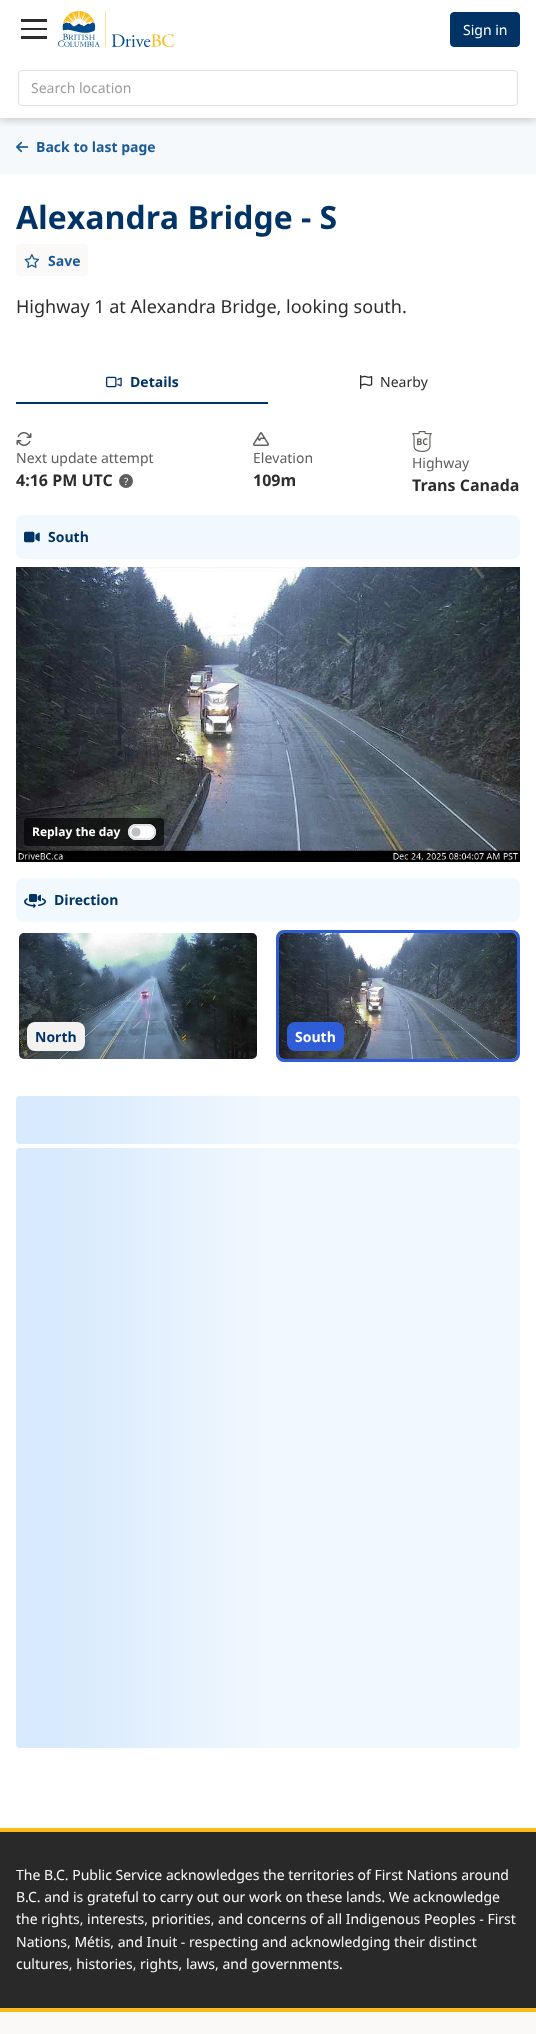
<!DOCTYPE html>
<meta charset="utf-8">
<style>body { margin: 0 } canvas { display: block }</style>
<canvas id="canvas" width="536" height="2034"></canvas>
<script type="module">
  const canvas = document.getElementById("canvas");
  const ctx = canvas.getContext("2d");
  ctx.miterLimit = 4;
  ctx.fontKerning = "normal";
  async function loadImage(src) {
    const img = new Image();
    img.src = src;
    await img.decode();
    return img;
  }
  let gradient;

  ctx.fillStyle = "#ffffff";
  ctx.fillRect(0, 0, 536, 2034);
  ctx.fillStyle = "#f6f9fc";
  ctx.fillRect(0, 118, 536, 56);
  ctx.save();
  ctx.beginPath();
  ctx.rect(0, 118, 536, 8);
  ctx.clip();
  ctx.fillStyle = "rgba(0, 0, 0, 0.2)";
  ctx.filter = "blur(5px)";
  ctx.beginPath();
  ctx.rect(0, 2, 536, 118);
  ctx.fill();
  ctx.filter = "none";
  ctx.restore();
  ctx.fillStyle = "#2d2d2d";
  ctx.fillRect(21, 19, 26, 3);
  ctx.fillRect(21, 28, 26, 2);
  ctx.fillRect(21, 36, 26, 3);
  ctx.drawImage(await loadImage("img1.png"), 58, 11, 116, 36);
  ctx.fillStyle = "#013366";
  ctx.beginPath();
  ctx.roundRect(450.5, 12.5, 69, 34, 3.5);
  ctx.fill();
  ctx.strokeStyle = "#013366";
  ctx.stroke();
  ctx.font = "14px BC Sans";
  ctx.fillStyle = "#ffffff";
  ctx.fillText("Sign in", 463, 35);
  ctx.beginPath();
  ctx.roundRect(18.5, 70.5, 499, 35, 3.5);
  ctx.strokeStyle = "#dee2e6";
  ctx.stroke();
  ctx.fillStyle = "#9f9d9c";
  ctx.fillText("Search location", 31, 93);
  ctx.drawImage(await loadImage("img2.png"), 16, 141, 13, 12);
  ctx.font = "bold 14px BC Sans";
  ctx.fillStyle = "#1a5a96";
  ctx.fillText("Back to last page", 36, 152);
  ctx.font = "bold 32px BC Sans";
  ctx.fillStyle = "#013366";
  ctx.fillText("Alexandra Bridge - S", 16, 229);
  ctx.fillStyle = "#faf9f8";
  ctx.beginPath();
  ctx.roundRect(16, 244, 72, 32, 4);
  ctx.fill();
  ctx.drawImage(await loadImage("img3.png"), 24, 254, 16, 14);
  ctx.font = "bold 14px BC Sans";
  ctx.fillStyle = "#1a5a96";
  ctx.fillText("Save", 48, 266);
  ctx.font = "18px BC Sans";
  ctx.fillStyle = "#2d2d2d";
  ctx.fillText("Highway 1 at Alexandra Bridge, looking south.", 16, 313);
  ctx.fillStyle = "#013366";
  ctx.fillRect(16, 402, 252, 2);
  ctx.drawImage(await loadImage("img4.png"), 106, 376, 16, 12);
  ctx.font = "bold 14px BC Sans";
  ctx.fillText("Details", 130, 387);
  ctx.drawImage(await loadImage("img5.png"), 360, 375, 13, 14);
  ctx.font = "14px BC Sans";
  ctx.fillStyle = "#2d2d2d";
  ctx.fillText("Nearby", 380, 387);
  ctx.drawImage(await loadImage("img6.png"), 16, 432, 16, 14);
  ctx.fillStyle = "#605e5c";
  ctx.fillText("Next update attempt", 16, 463);
  ctx.font = "bold 16px BC Sans";
  ctx.fillStyle = "#2d2d2d";
  ctx.fillText("4:16 PM UTC", 16, 486);
  ctx.fillStyle = "#605e5c";
  ctx.beginPath();
  ctx.arc(126, 481, 7, 0, Math.PI * 2);
  ctx.fill();
  ctx.font = "10px BC Sans";
  ctx.fillStyle = "#ffffff";
  ctx.fillText("?", 124, 485);
  ctx.drawImage(await loadImage("img7.png"), 253, 432, 16, 14);
  ctx.font = "14px BC Sans";
  ctx.fillStyle = "#605e5c";
  ctx.fillText("Elevation", 253, 463);
  ctx.font = "bold 16px BC Sans";
  ctx.fillStyle = "#2d2d2d";
  ctx.fillText("109m", 253, 486);
  ctx.drawImage(await loadImage("img8.png"), 412, 431, 20, 21);
  ctx.font = "14px BC Sans";
  ctx.fillStyle = "#605e5c";
  ctx.fillText("Highway", 412, 468);
  ctx.font = "bold 16px BC Sans";
  ctx.fillStyle = "#2d2d2d";
  ctx.fillText("Trans Canada", 412, 491);
  ctx.fillStyle = "#f1f8fe";
  ctx.beginPath();
  ctx.roundRect(16, 515, 504, 44, 8);
  ctx.fill();
  ctx.drawImage(await loadImage("img9.png"), 24, 531, 16, 12);
  ctx.font = "bold 14px BC Sans";
  ctx.fillStyle = "#013366";
  ctx.fillText("South", 48, 542);
  ctx.drawImage(await loadImage("img10.png"), 16, 567, 504, 295);
  ctx.fillStyle = "rgba(0, 0, 0, 0.65)";
  ctx.beginPath();
  ctx.roundRect(24, 818, 140, 28, 4);
  ctx.fill();
  ctx.font = "bold 12px BC Sans";
  ctx.fillStyle = "#ffffff";
  ctx.fillText("Replay the day", 32, 836);
  ctx.beginPath();
  ctx.roundRect(128, 824, 28, 16, 8);
  ctx.fill();
  ctx.fillStyle = "#bfbfbf";
  ctx.beginPath();
  ctx.arc(136, 832, 4.5, 0, Math.PI * 2);
  ctx.fill();
  ctx.beginPath();
  ctx.roundRect(129, 825, 26, 14, 7);
  ctx.lineWidth = 2;
  ctx.stroke();
  ctx.fillStyle = "#f1f8fe";
  ctx.beginPath();
  ctx.roundRect(16, 878, 504, 44, 8);
  ctx.fill();
  ctx.drawImage(await loadImage("img11.png"), 24, 894, 22, 14);
  ctx.font = "bold 14px BC Sans";
  ctx.fillStyle = "#013366";
  ctx.fillText("Direction", 54, 905);
  ctx.drawImage(await loadImage("img12.png"), 19, 933, 238, 126);
  ctx.fillStyle = "#f3f2f1";
  ctx.beginPath();
  ctx.roundRect(27, 1022, 58, 29, 8);
  ctx.fill();
  ctx.fillStyle = "#013366";
  ctx.fillText("North", 35, 1042);
  ctx.beginPath();
  ctx.roundRect(277.5, 931.5, 241, 129, 6.5);
  ctx.strokeStyle = "#2e5dd7";
  ctx.lineWidth = 3;
  ctx.stroke();
  ctx.drawImage(await loadImage("img13.png"), 279, 933, 238, 126);
  ctx.fillStyle = "#2e5dd7";
  ctx.beginPath();
  ctx.roundRect(287, 1022, 57, 29, 8);
  ctx.fill();
  ctx.fillStyle = "#ffffff";
  ctx.fillText("South", 295, 1042);
  gradient = ctx.createLinearGradient(16, 1120, 520, 1120);
  gradient.addColorStop(0.1, "#d8eafd");
  gradient.addColorStop(0.5, "#f1f8fe");
  gradient.addColorStop(0.75, "#f1f8fe");
  ctx.fillStyle = gradient;
  ctx.beginPath();
  ctx.roundRect(16, 1096, 504, 48, 4);
  ctx.fill();
  gradient = ctx.createLinearGradient(16, 1448, 520, 1448);
  gradient.addColorStop(0.1, "#d8eafd");
  gradient.addColorStop(0.5, "#f1f8fe");
  gradient.addColorStop(0.75, "#f1f8fe");
  ctx.fillStyle = gradient;
  ctx.beginPath();
  ctx.roundRect(16, 1148, 504, 600, 4);
  ctx.fill();
  ctx.fillStyle = "#faf9f8";
  ctx.fillRect(0, 2012, 536, 22);
  ctx.fillStyle = "#292929";
  ctx.fillRect(0, 1832, 536, 176);
  ctx.fillStyle = "#fcba19";
  ctx.fillRect(0, 1828, 536, 4);
  ctx.fillRect(0, 2008, 536, 4);
  ctx.font = "14px BC Sans";
  ctx.fillStyle = "#faf9f8";
  ctx.fillText("The B.C. Public Service acknowledges the territories of First Nations around", 16, 1880);
  ctx.fillText("B.C. and is grateful to carry out our work on these lands. We acknowledge", 16, 1902);
  ctx.fillText("the rights, interests, priorities, and concerns of all Indigenous Peoples - First", 16, 1924);
  ctx.fillText("Nations, Métis, and Inuit - respecting and acknowledging their distinct", 16, 1947);
  ctx.fillText("cultures, histories, rights, laws, and governments.", 16, 1969);
</script>
